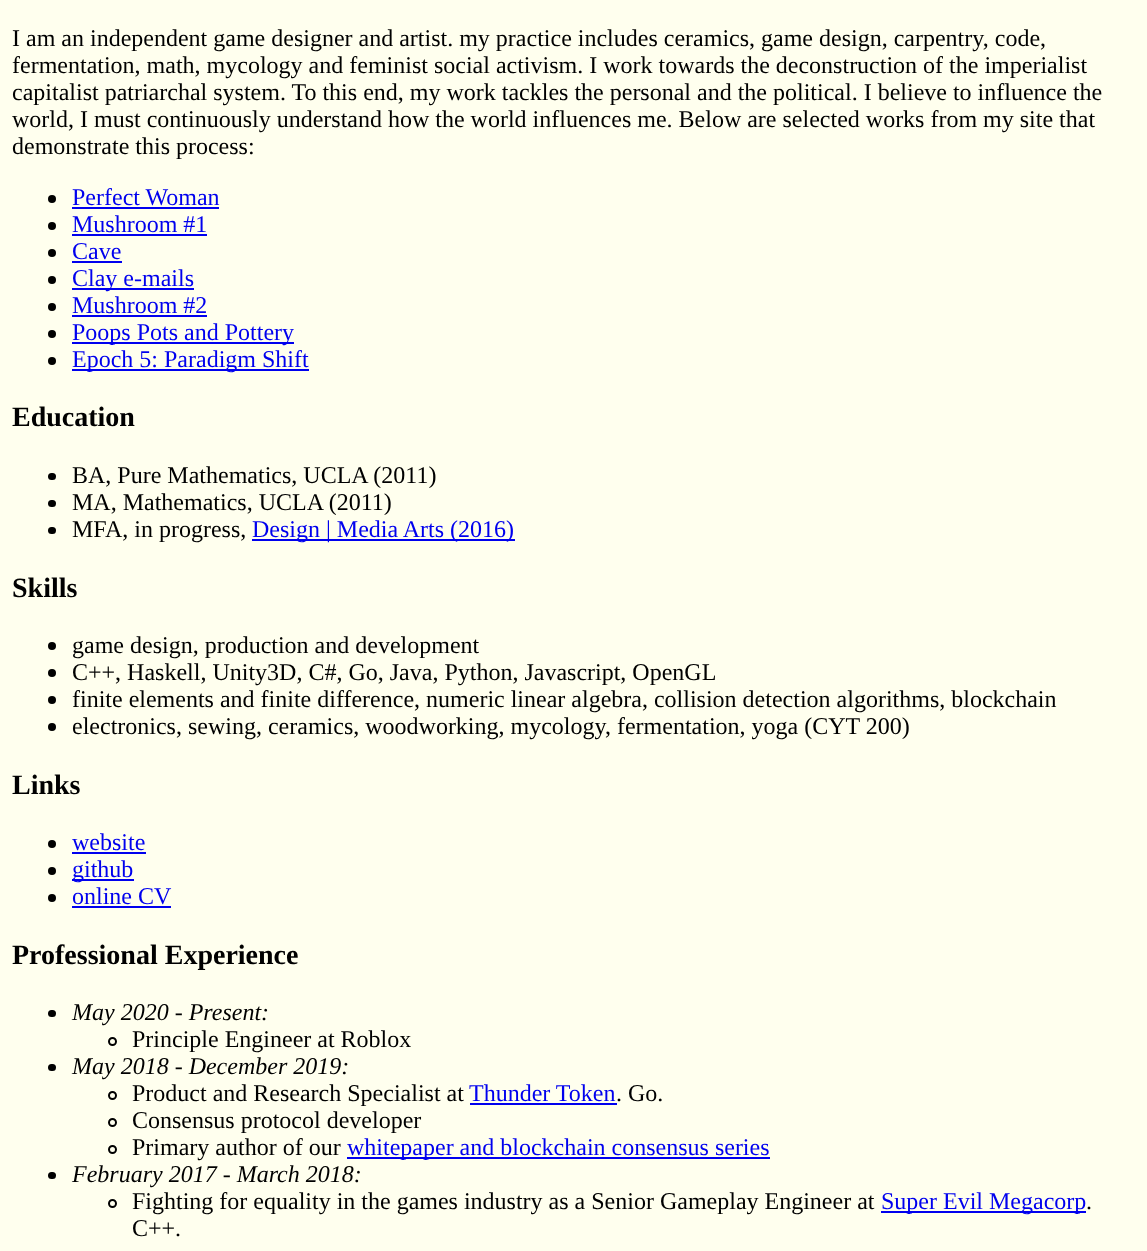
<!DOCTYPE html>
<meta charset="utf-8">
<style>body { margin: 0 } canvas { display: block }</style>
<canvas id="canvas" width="1147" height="1251"></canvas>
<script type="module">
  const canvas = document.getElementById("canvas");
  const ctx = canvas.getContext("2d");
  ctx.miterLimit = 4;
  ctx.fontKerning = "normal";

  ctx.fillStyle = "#ffffee";
  ctx.fillRect(0, 0, 1147, 1251);
  ctx.font = "24px Liberation Serif";
  ctx.fillStyle = "#000000";
  ctx.fillText("I am an independent game designer and artist. my practice includes ceramics, game design, carpentry, code,", 12, 46);
  ctx.fillText("fermentation, math, mycology and feminist social activism. I work towards the deconstruction of the imperialist", 12, 73);
  ctx.fillText("capitalist patriarchal system. To this end, my work tackles the personal and the political. I believe to influence the", 12, 100);
  ctx.fillText("world, I must continuously understand how the world influences me. Below are selected works from my site that", 12, 127);
  ctx.fillText("demonstrate this process:", 12, 154);
  ctx.beginPath();
  ctx.arc(52, 199, 4, 0, Math.PI * 2);
  ctx.fill();
  ctx.fillStyle = "#0000ee";
  ctx.fillText("Perfect Woman", 72, 205);
  ctx.fillRect(72, 207, 147, 2);
  ctx.fillStyle = "#000000";
  ctx.beginPath();
  ctx.arc(52, 226, 4, 0, Math.PI * 2);
  ctx.fill();
  ctx.fillStyle = "#0000ee";
  ctx.fillText("Mushroom #1", 72, 232);
  ctx.fillRect(72, 234, 135, 2);
  ctx.fillStyle = "#000000";
  ctx.beginPath();
  ctx.arc(52, 253, 4, 0, Math.PI * 2);
  ctx.fill();
  ctx.fillStyle = "#0000ee";
  ctx.fillText("Cave", 72, 259);
  ctx.fillRect(72, 261, 50, 2);
  ctx.fillStyle = "#000000";
  ctx.beginPath();
  ctx.arc(52, 280, 4, 0, Math.PI * 2);
  ctx.fill();
  ctx.fillStyle = "#0000ee";
  ctx.fillRect(72, 288, 122, 2);
  ctx.fillText("Clay e-mails", 72, 286);
  ctx.fillStyle = "#000000";
  ctx.beginPath();
  ctx.arc(52, 307, 4, 0, Math.PI * 2);
  ctx.fill();
  ctx.fillStyle = "#0000ee";
  ctx.fillText("Mushroom #2", 72, 313);
  ctx.fillRect(72, 315, 135, 2);
  ctx.fillStyle = "#000000";
  ctx.beginPath();
  ctx.arc(52, 334, 4, 0, Math.PI * 2);
  ctx.fill();
  ctx.fillStyle = "#0000ee";
  ctx.fillRect(72, 342, 222, 2);
  ctx.fillText("Poops Pots and Pottery", 72, 340);
  ctx.fillStyle = "#000000";
  ctx.beginPath();
  ctx.arc(52, 361, 4, 0, Math.PI * 2);
  ctx.fill();
  ctx.fillStyle = "#0000ee";
  ctx.fillRect(72, 369, 237, 2);
  ctx.fillText("Epoch 5: Paradigm Shift", 72, 367);
  ctx.font = "bold 28px Liberation Serif";
  ctx.fillStyle = "#000000";
  ctx.fillText("Education", 12, 426);
  ctx.beginPath();
  ctx.roundRect(48, 473, 8, 7, 3.5);
  ctx.fill();
  ctx.font = "24px Liberation Serif";
  ctx.fillText("BA, Pure Mathematics, UCLA (2011)", 72, 483);
  ctx.beginPath();
  ctx.roundRect(48, 500, 8, 7, 3.5);
  ctx.fill();
  ctx.fillText("MA, Mathematics, UCLA (2011)", 72, 510);
  ctx.beginPath();
  ctx.roundRect(48, 527, 8, 7, 3.5);
  ctx.fill();
  ctx.fillText("MFA, in progress,", 72, 537);
  ctx.fillStyle = "#0000ee";
  ctx.fillRect(252, 539, 263, 2);
  ctx.fillText("Design | Media Arts (2016)", 252, 537);
  ctx.font = "bold 28px Liberation Serif";
  ctx.fillStyle = "#000000";
  ctx.fillText("Skills", 12, 597);
  ctx.beginPath();
  ctx.arc(52, 646, 4, 0, Math.PI * 2);
  ctx.fill();
  ctx.font = "24px Liberation Serif";
  ctx.fillText("game design, production and development", 72, 653);
  ctx.beginPath();
  ctx.arc(52, 673, 4, 0, Math.PI * 2);
  ctx.fill();
  ctx.fillText("C++, Haskell, Unity3D, C#, Go, Java, Python, Javascript, OpenGL", 72, 680);
  ctx.beginPath();
  ctx.arc(52, 700, 4, 0, Math.PI * 2);
  ctx.fill();
  ctx.fillText("finite elements and finite difference, numeric linear algebra, collision detection algorithms, blockchain", 72, 707);
  ctx.beginPath();
  ctx.arc(52, 727, 4, 0, Math.PI * 2);
  ctx.fill();
  ctx.fillText("electronics, sewing, ceramics, woodworking, mycology, fermentation, yoga (CYT 200)", 72, 734);
  ctx.font = "bold 28px Liberation Serif";
  ctx.fillText("Links", 12, 794);
  ctx.beginPath();
  ctx.arc(52, 844, 4, 0, Math.PI * 2);
  ctx.fill();
  ctx.font = "24px Liberation Serif";
  ctx.fillStyle = "#0000ee";
  ctx.fillText("website", 72, 850);
  ctx.fillRect(72, 852, 74, 2);
  ctx.fillStyle = "#000000";
  ctx.beginPath();
  ctx.arc(52, 871, 4, 0, Math.PI * 2);
  ctx.fill();
  ctx.fillStyle = "#0000ee";
  ctx.fillRect(72, 879, 62, 2);
  ctx.fillText("github", 72, 877);
  ctx.fillStyle = "#000000";
  ctx.beginPath();
  ctx.arc(52, 898, 4, 0, Math.PI * 2);
  ctx.fill();
  ctx.fillStyle = "#0000ee";
  ctx.fillText("online CV", 72, 904);
  ctx.fillRect(72, 906, 99, 2);
  ctx.font = "bold 28px Liberation Serif";
  ctx.fillStyle = "#000000";
  ctx.fillText("Professional Experience", 12, 964);
  ctx.beginPath();
  ctx.roundRect(48, 1010, 8, 7, 3.5);
  ctx.fill();
  ctx.font = "italic 24px Liberation Serif";
  ctx.fillText("May 2020 - Present:", 72, 1020);
  ctx.beginPath();
  ctx.arc(112.5, 1041.5, 3.5, 0, Math.PI * 2);
  ctx.strokeStyle = "#000000";
  ctx.lineWidth = 2;
  ctx.stroke();
  ctx.font = "24px Liberation Serif";
  ctx.fillText("Principle Engineer at Roblox", 132, 1047);
  ctx.beginPath();
  ctx.roundRect(48, 1064, 8, 7, 3.5);
  ctx.fill();
  ctx.font = "italic 24px Liberation Serif";
  ctx.fillText("May 2018 - December 2019:", 72, 1074);
  ctx.beginPath();
  ctx.arc(112.5, 1095.5, 3.5, 0, Math.PI * 2);
  ctx.stroke();
  ctx.font = "24px Liberation Serif";
  ctx.fillText("Product and Research Specialist at", 132, 1101);
  ctx.fillStyle = "#0000ee";
  ctx.fillText("Thunder Token", 469, 1101);
  ctx.fillRect(470, 1103, 147, 2);
  ctx.fillStyle = "#000000";
  ctx.fillText(". Go.", 616, 1101);
  ctx.beginPath();
  ctx.arc(112.5, 1122.5, 3.5, 0, Math.PI * 2);
  ctx.stroke();
  ctx.fillText("Consensus protocol developer", 132, 1128);
  ctx.beginPath();
  ctx.arc(112.5, 1149.5, 3.5, 0, Math.PI * 2);
  ctx.stroke();
  ctx.fillText("Primary author of our", 132, 1155);
  ctx.fillStyle = "#0000ee";
  ctx.fillRect(347, 1157, 423, 2);
  ctx.fillText("whitepaper and blockchain consensus series", 347, 1155);
  ctx.fillStyle = "#000000";
  ctx.beginPath();
  ctx.roundRect(48, 1172, 8, 7, 3.5);
  ctx.fill();
  ctx.font = "italic 24px Liberation Serif";
  ctx.fillText("February 2017 - March 2018:", 72, 1182);
  ctx.beginPath();
  ctx.arc(112.5, 1203.5, 3.5, 0, Math.PI * 2);
  ctx.stroke();
  ctx.font = "24px Liberation Serif";
  ctx.fillText("Fighting for equality in the games industry as a Senior Gameplay Engineer at", 132, 1209);
  ctx.fillStyle = "#0000ee";
  ctx.fillRect(881, 1211, 205, 2);
  ctx.fillText("Super Evil Megacorp", 881, 1209);
  ctx.fillStyle = "#000000";
  ctx.fillText(".", 1086, 1209);
  ctx.fillText("C++.", 132, 1236);
</script>
